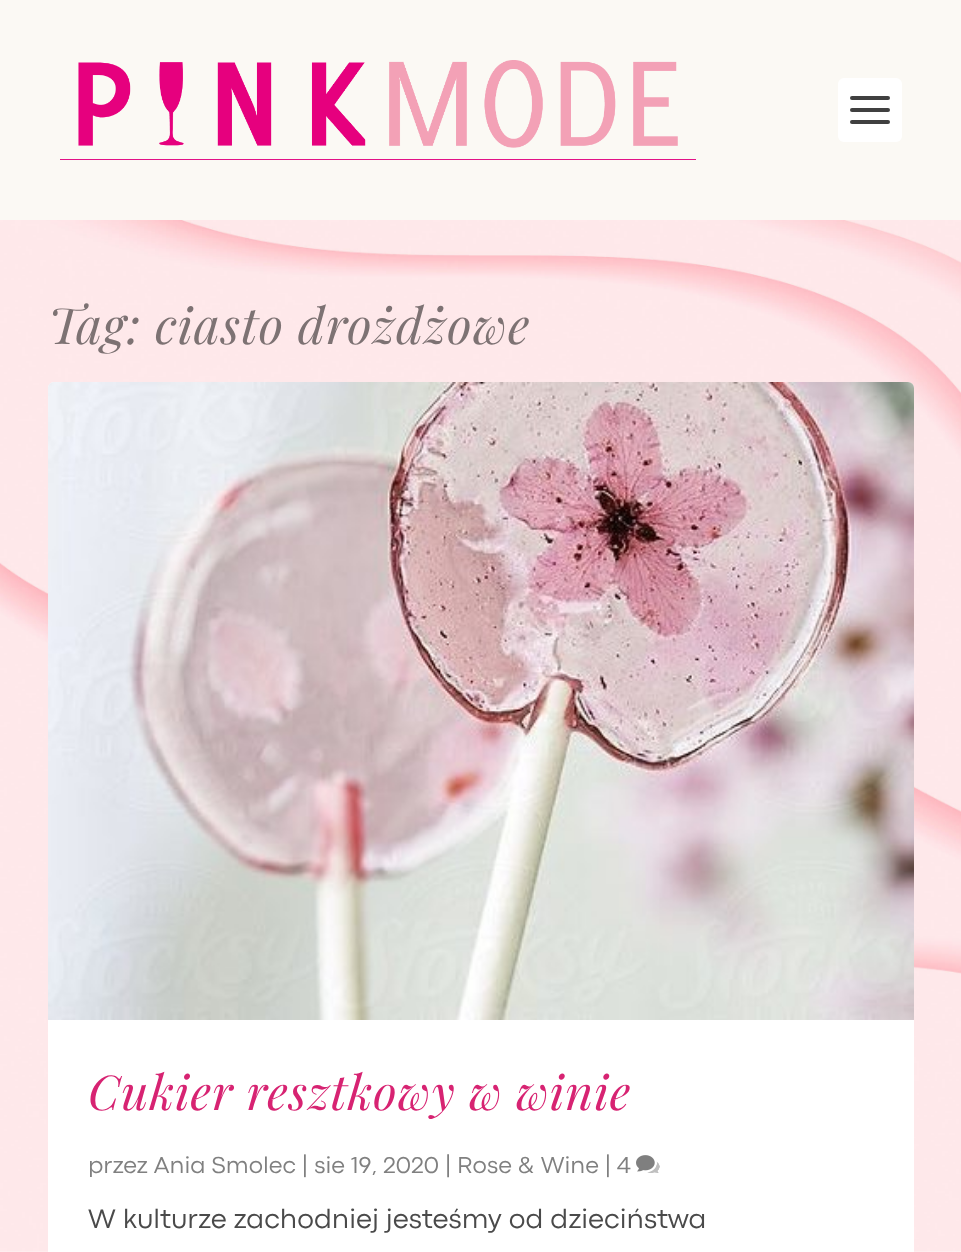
<!DOCTYPE html>
<meta charset="utf-8">
<style>body { margin: 0 } canvas { display: block }</style>
<canvas id="canvas" width="961" height="1252"></canvas>
<script type="module">
  const canvas = document.getElementById("canvas");
  const ctx = canvas.getContext("2d");
  ctx.miterLimit = 4;
  ctx.fontKerning = "normal";
  async function loadImage(src) {
    const img = new Image();
    img.src = src;
    await img.decode();
    return img;
  }

  ctx.fillStyle = "#ffffff";
  ctx.fillRect(0, 0, 961, 1252);
  ctx.drawImage(await loadImage("img1.png"), 0, 220, 961, 1032);
  ctx.fillStyle = "#fbf9f4";
  ctx.fillRect(0, 0, 961, 220);
  ctx.drawImage(await loadImage("img2.png"), 60, 60, 636, 100);
  ctx.fillStyle = "#ffffff";
  ctx.beginPath();
  ctx.roundRect(838, 78, 64, 64, 6);
  ctx.fill();
  ctx.fillStyle = "#404040";
  ctx.beginPath();
  ctx.roundRect(850, 96, 40, 4, 2);
  ctx.fill();
  ctx.beginPath();
  ctx.roundRect(850, 108, 40, 4, 2);
  ctx.fill();
  ctx.beginPath();
  ctx.roundRect(850, 120, 40, 4, 2);
  ctx.fill();
  ctx.letterSpacing = "1px";
  ctx.font = "italic 50px Playfair Display";
  ctx.fillStyle = "#7d7273";
  ctx.fillText("Tag: ciasto drożdżowe", 48, 344);
  ctx.fillStyle = "#ffffff";
  ctx.beginPath();
  ctx.roundRect(48, 382, 866, 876, 6);
  ctx.fill();
  ctx.drawImage(await loadImage("img3.png"), 48, 382, 866, 638);
  ctx.font = "italic 48px Playfair Display";
  ctx.fillStyle = "#d72372";
  ctx.fillText("Cukier resztkowy w winie", 88, 1110);
  ctx.letterSpacing = "0px";
  ctx.font = "300 24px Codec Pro";
  ctx.fillStyle = "#808080";
  ctx.fillText("przez Ania Smolec | sie 19, 2020 | Rose & Wine | 4", 88, 1173);
  ctx.drawImage(await loadImage("img4.png"), 636, 1155, 24, 18);
  ctx.font = "300 28px Codec Pro";
  ctx.fillStyle = "#4a4a4a";
  ctx.fillText("W kulturze zachodniej jesteśmy od dzieciństwa", 88, 1228);
</script>
